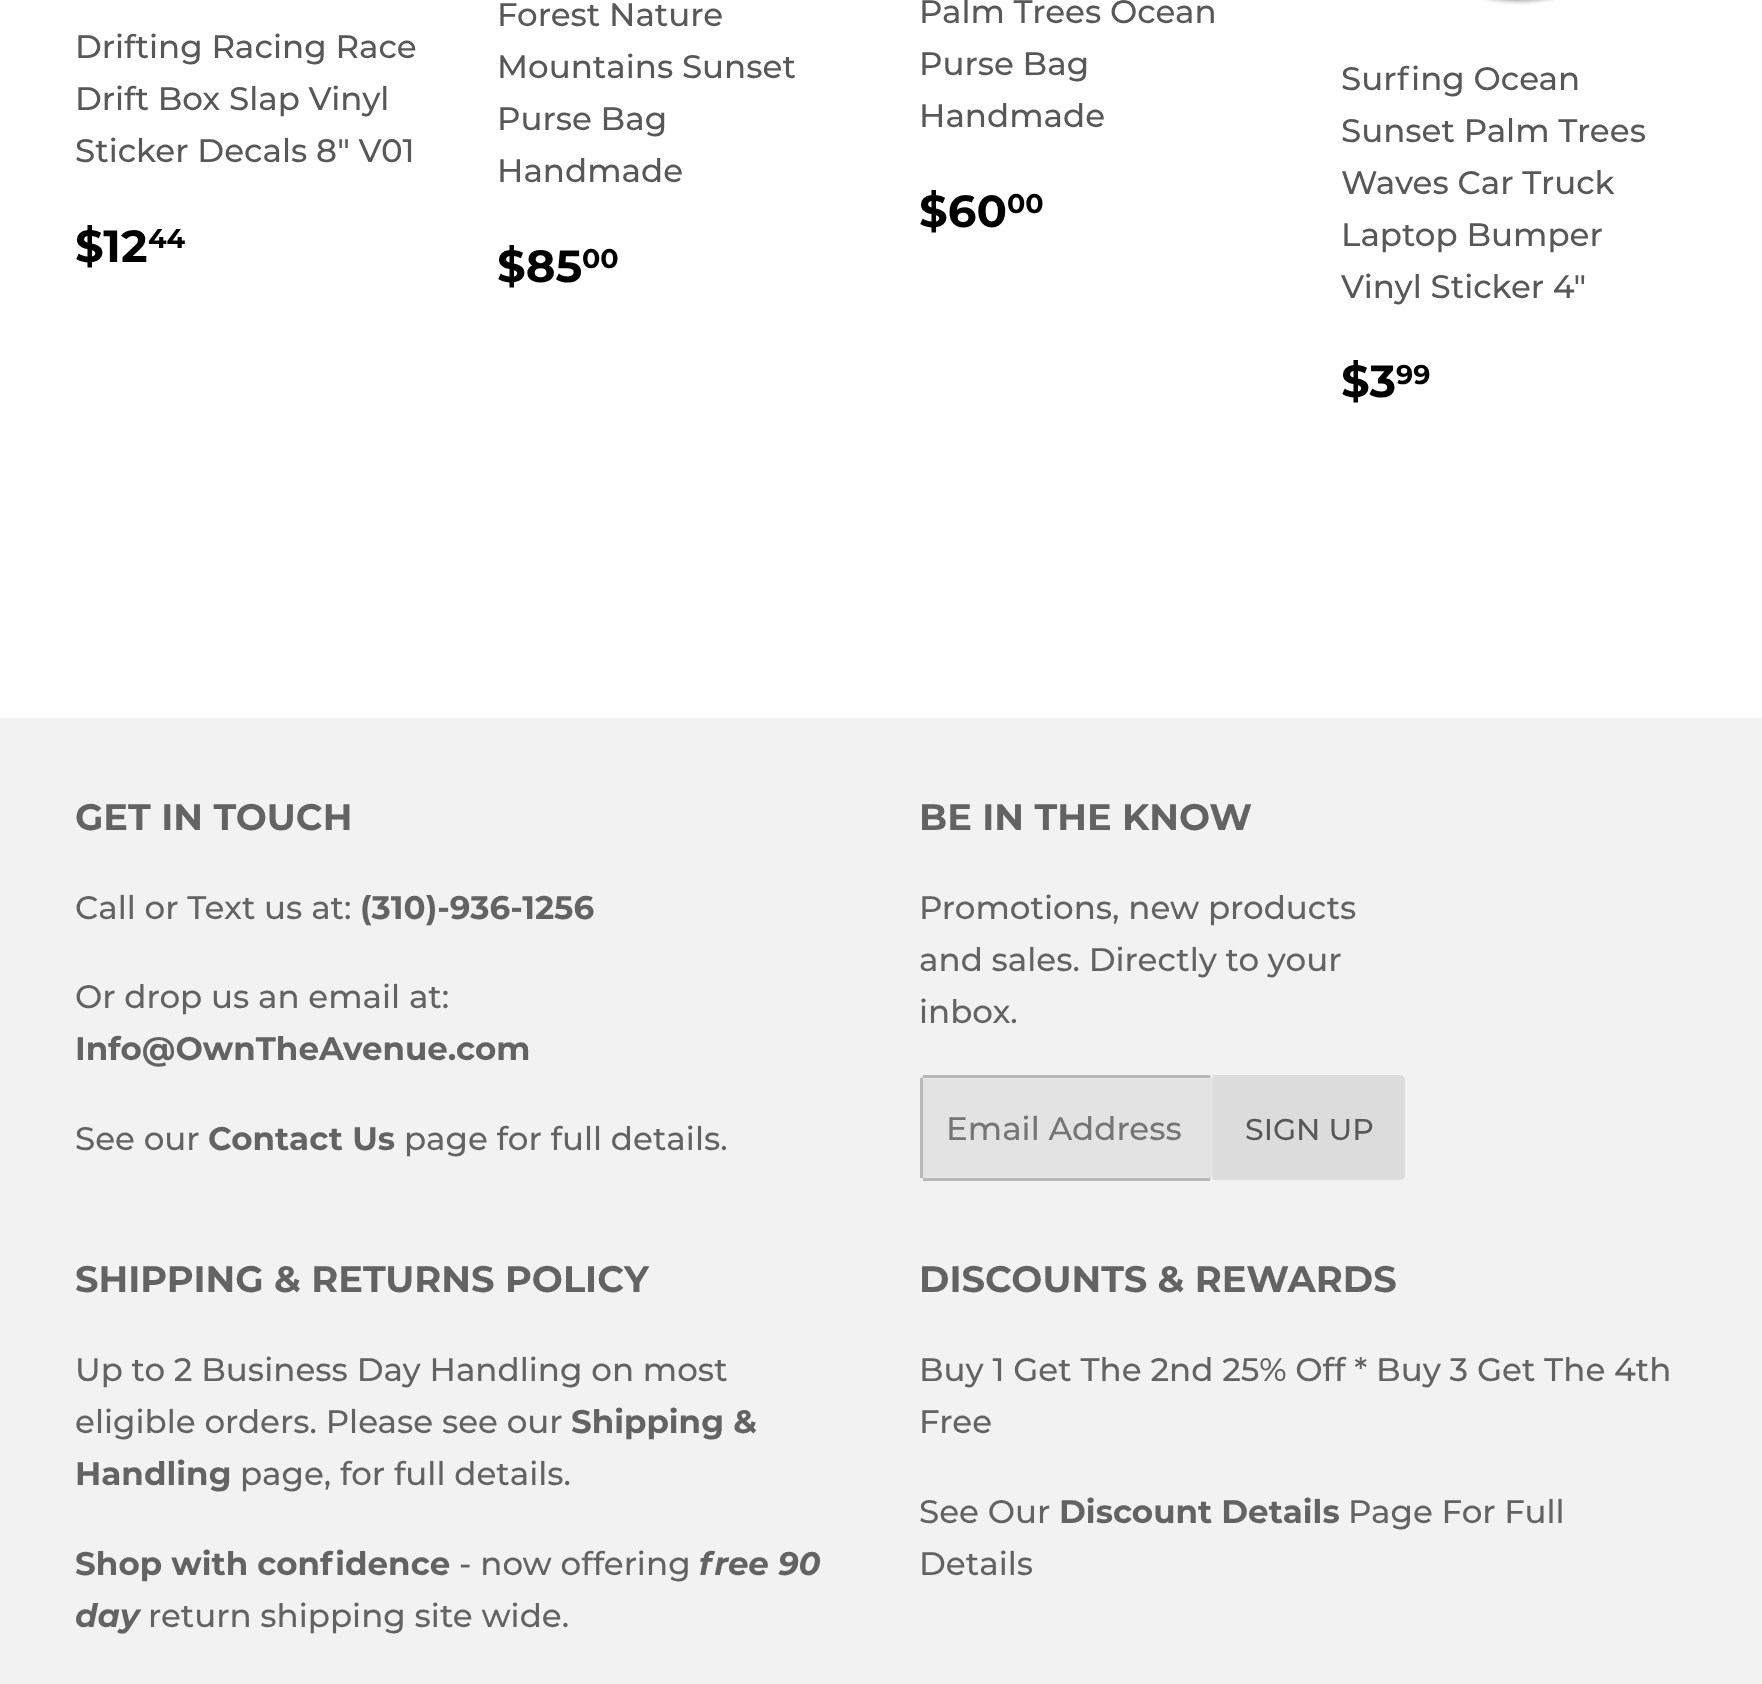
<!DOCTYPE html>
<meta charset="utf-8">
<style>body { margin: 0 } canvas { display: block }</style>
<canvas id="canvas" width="1762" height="1684"></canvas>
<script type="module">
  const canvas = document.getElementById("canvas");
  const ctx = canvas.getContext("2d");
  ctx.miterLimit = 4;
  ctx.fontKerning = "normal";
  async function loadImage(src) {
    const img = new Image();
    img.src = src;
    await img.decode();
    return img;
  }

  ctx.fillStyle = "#ffffff";
  ctx.fillRect(0, 0, 1762, 1684);
  ctx.font = "500 32.5px Montserrat";
  ctx.fillStyle = "#585858";
  ctx.fillText("Drifting Racing Race", 75, 58);
  ctx.fillText("Drift Box Slap Vinyl", 75, 110);
  ctx.fillText("Sticker Decals 8\" V01", 75, 162);
  ctx.font = "bold 45px Montserrat";
  ctx.fillStyle = "#000000";
  ctx.fillText("$12", 75, 262);
  ctx.font = "bold 27px Montserrat";
  ctx.fillText("44", 148, 248);
  ctx.font = "500 32.5px Montserrat";
  ctx.fillStyle = "#585858";
  ctx.fillText("Forest Nature", 497, 26);
  ctx.fillText("Mountains Sunset", 497, 78);
  ctx.fillText("Purse Bag", 497, 130);
  ctx.fillText("Handmade", 497, 182);
  ctx.font = "bold 45px Montserrat";
  ctx.fillStyle = "#000000";
  ctx.fillText("$85", 497, 282);
  ctx.font = "bold 27px Montserrat";
  ctx.fillText("00", 582, 268);
  ctx.font = "500 32.5px Montserrat";
  ctx.fillStyle = "#585858";
  ctx.fillText("Palm Trees Ocean", 919, 23);
  ctx.fillText("Purse Bag", 919, 75);
  ctx.fillText("Handmade", 919, 127);
  ctx.font = "bold 45px Montserrat";
  ctx.fillStyle = "#000000";
  ctx.fillText("$60", 919, 227);
  ctx.font = "bold 27px Montserrat";
  ctx.fillText("00", 1007, 213);
  ctx.drawImage(await loadImage("img1.png"), 1483, 0, 72, 5);
  ctx.font = "500 32.5px Montserrat";
  ctx.fillStyle = "#585858";
  ctx.fillText("Surfing Ocean", 1341, 90);
  ctx.fillText("Sunset Palm Trees", 1341, 142);
  ctx.fillText("Waves Car Truck", 1341, 194);
  ctx.fillText("Laptop Bumper", 1341, 246);
  ctx.fillText("Vinyl Sticker 4\"", 1341, 298);
  ctx.font = "bold 45px Montserrat";
  ctx.fillStyle = "#000000";
  ctx.fillText("$3", 1341, 397);
  ctx.font = "bold 27px Montserrat";
  ctx.fillText("99", 1396, 384);
  ctx.fillStyle = "#f2f2f2";
  ctx.fillRect(0, 718, 1762, 966);
  ctx.font = "bold 36.8px Montserrat";
  ctx.fillStyle = "#636363";
  ctx.fillText("GET IN TOUCH", 75, 830);
  ctx.font = "500 32.5px Montserrat";
  ctx.fillText("Call or Text us at:", 75, 919);
  ctx.font = "bold 32.5px Montserrat";
  ctx.fillText("(310)-936-1256", 360, 919);
  ctx.font = "500 32.5px Montserrat";
  ctx.fillText("Or drop us an email at:", 75, 1008);
  ctx.font = "bold 32.5px Montserrat";
  ctx.fillText("Info@OwnTheAvenue.com", 75, 1060);
  ctx.font = "500 32.5px Montserrat";
  ctx.fillText("See our", 75, 1150);
  ctx.font = "bold 32.5px Montserrat";
  ctx.fillText("Contact Us", 208, 1150);
  ctx.font = "500 32.5px Montserrat";
  ctx.fillText("page for full details.", 404, 1150);
  ctx.font = "bold 36.8px Montserrat";
  ctx.fillText("BE IN THE KNOW", 919, 830);
  ctx.font = "500 32.5px Montserrat";
  ctx.fillText("Promotions, new products", 919, 919);
  ctx.fillText("and sales. Directly to your", 919, 971);
  ctx.fillText("inbox.", 919, 1023);
  ctx.fillStyle = "#e3e3e3";
  ctx.beginPath();
  ctx.roundRect(920, 1075, 293, 105, 5);
  ctx.fill();
  ctx.fillStyle = "#b9b9b9";
  ctx.fillRect(923, 1075, 287, 3);
  ctx.fillRect(923, 1178, 287, 3);
  ctx.fillRect(920, 1078, 3, 100);
  ctx.fillStyle = "#757575";
  ctx.fillText("Email Address", 946, 1140);
  ctx.fillStyle = "#dcdcdc";
  ctx.beginPath();
  ctx.roundRect(1213, 1075, 192, 105, [0, 5, 5, 0]);
  ctx.fill();
  ctx.font = "500 30px Montserrat";
  ctx.fillStyle = "#585858";
  ctx.fillText("SIGN UP", 1245, 1140);
  ctx.font = "bold 36.8px Montserrat";
  ctx.fillStyle = "#636363";
  ctx.fillText("SHIPPING & RETURNS POLICY", 75, 1292);
  ctx.font = "500 32.5px Montserrat";
  ctx.fillText("Up to 2 Business Day Handling on most", 75, 1381);
  ctx.fillText("eligible orders. Please see our", 75, 1433);
  ctx.font = "bold 32.5px Montserrat";
  ctx.fillText("Shipping &", 571, 1433);
  ctx.fillText("Handling", 75, 1485);
  ctx.font = "500 32.5px Montserrat";
  ctx.fillText("page, for full details.", 240, 1485);
  ctx.font = "bold 32.5px Montserrat";
  ctx.fillText("Shop with confidence", 75, 1575);
  ctx.font = "500 32.5px Montserrat";
  ctx.fillText("- now offering", 459, 1575);
  ctx.font = "italic bold 32.5px Montserrat";
  ctx.fillText("free 90", 699, 1575);
  ctx.fillText("day", 75, 1627);
  ctx.font = "500 32.5px Montserrat";
  ctx.fillText("return shipping site wide.", 148, 1627);
  ctx.font = "bold 36.8px Montserrat";
  ctx.fillText("DISCOUNTS & REWARDS", 919, 1292);
  ctx.font = "500 32.5px Montserrat";
  ctx.fillText("Buy 1 Get The 2nd 25% Off * Buy 3 Get The 4th", 919, 1381);
  ctx.fillText("Free", 919, 1433);
  ctx.fillText("See Our", 919, 1523);
  ctx.font = "bold 32.5px Montserrat";
  ctx.fillText("Discount Details", 1059, 1523);
  ctx.font = "500 32.5px Montserrat";
  ctx.fillText("Page For Full", 1348, 1523);
  ctx.fillText("Details", 919, 1575);
</script>
